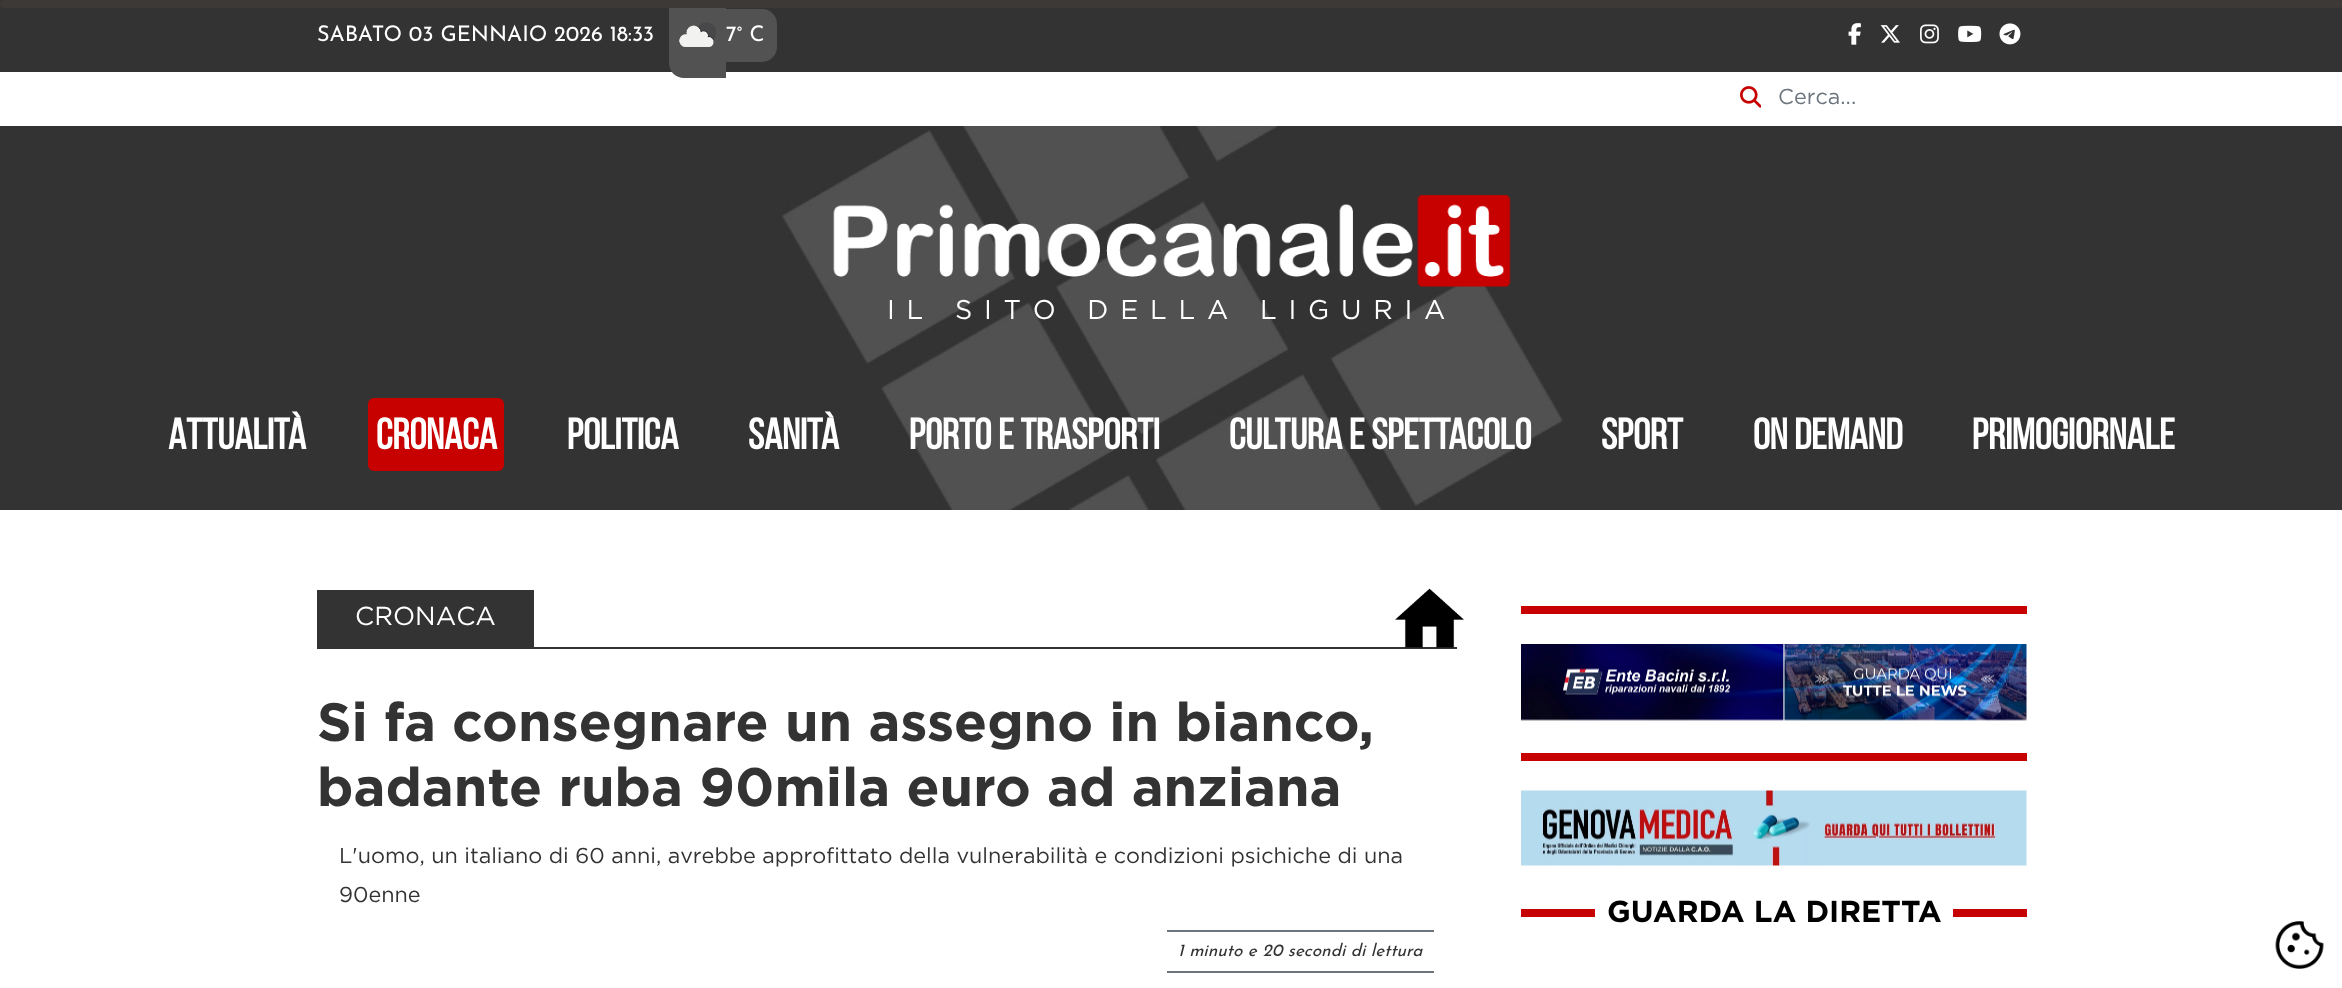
<!DOCTYPE html>
<meta charset="utf-8">
<style>body { margin: 0 } canvas { display: block }</style>
<canvas id="canvas" width="2342" height="988"></canvas>
<script type="module">
  const canvas = document.getElementById("canvas");
  const ctx = canvas.getContext("2d");
  ctx.miterLimit = 4;
  ctx.fontKerning = "normal";
  async function loadImage(src) {
    const img = new Image();
    img.src = src;
    await img.decode();
    return img;
  }

  ctx.fillStyle = "#ffffff";
  ctx.fillRect(0, 0, 2342, 988);
  ctx.fillStyle = "#333333";
  ctx.fillRect(0, 0, 2342, 72);
  ctx.fillStyle = "#525252";
  ctx.beginPath();
  ctx.moveTo(684, -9);
  ctx.lineTo(726, -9);
  ctx.lineTo(726, 78);
  ctx.lineTo(684, 78);
  ctx.bezierCurveTo(675.5, 78, 669, 71.5, 669, 63);
  ctx.lineTo(669, 6);
  ctx.bezierCurveTo(669, -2.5, 675.5, -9, 684, -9);
  ctx.closePath();
  ctx.fill();
  ctx.fillStyle = "#3d3936";
  ctx.beginPath();
  ctx.roundRect(0, 0, 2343, 8, 4);
  ctx.fill();
  ctx.font = "21.6px Josefin Sans";
  ctx.fillStyle = "#ffffff";
  ctx.fillText("SABATO 03 GENNAIO 2026 18:33", 317, 41);
  ctx.drawImage(await loadImage("img1.png"), 679, 22, 37, 25);
  ctx.fillStyle = "#525252";
  ctx.beginPath();
  ctx.roundRect(726, 9, 51, 53, [0, 15, 15, 0]);
  ctx.fill();
  ctx.fillStyle = "#ffffff";
  ctx.fillText("7° C", 726, 41);
  ctx.drawImage(await loadImage("img2.png"), 1848, 23, 13, 22);
  ctx.drawImage(await loadImage("img3.png"), 1880, 25, 20, 18);
  ctx.drawImage(await loadImage("img4.png"), 1920, 24, 19, 20);
  ctx.drawImage(await loadImage("img5.png"), 1958, 25, 24, 17);
  ctx.drawImage(await loadImage("img6.png"), 1999, 23, 22, 22);
  ctx.drawImage(await loadImage("img7.png"), 1740, 86, 21, 22);
  ctx.font = "21.6px Gotham";
  ctx.fillStyle = "#6c757d";
  ctx.fillText("Cerca...", 1778, 104);
  ctx.fillStyle = "#333333";
  ctx.fillRect(0, 126, 2342, 384);
  ctx.drawImage(await loadImage("img8.png"), 782, 126, 781, 384);
  ctx.drawImage(await loadImage("img9.png"), 833, 195, 678, 92);
  ctx.letterSpacing = "11.75px";
  ctx.font = "27px Gotham";
  ctx.fillStyle = "#ffffff";
  ctx.fillText("IL SITO DELLA LIGURIA", 887, 319);
  ctx.letterSpacing = "0px";
  ctx.font = "bold 43.25px Bebas Neue";
  ctx.fillText("Attualità", 168, 449);
  ctx.fillStyle = "#c70000";
  ctx.beginPath();
  ctx.roundRect(368, 398, 136, 73, 6);
  ctx.fill();
  ctx.fillStyle = "#ffffff";
  ctx.fillText("Cronaca", 376, 449);
  ctx.fillText("Politica", 567, 449);
  ctx.fillText("Sanità", 748, 449);
  ctx.fillText("Porto e trasporti", 909, 449);
  ctx.fillText("Cultura e spettacolo", 1229, 449);
  ctx.fillText("Sport", 1601, 449);
  ctx.fillText("On demand", 1753, 449);
  ctx.fillText("Primogiornale", 1972, 449);
  ctx.fillStyle = "#333333";
  ctx.fillRect(317, 647, 1140, 2);
  ctx.fillRect(317, 590, 217, 57);
  ctx.font = "26px Gotham";
  ctx.fillStyle = "#ffffff";
  ctx.fillText("CRONACA", 355, 625);
  ctx.drawImage(await loadImage("img10.png"), 1395, 588, 69, 60);
  ctx.font = "bold 54px Gotham";
  ctx.fillStyle = "#333333";
  ctx.fillText("Si fa consegnare un assegno in bianco,", 317, 741);
  ctx.fillText("badante ruba 90mila euro ad anziana", 317, 806);
  ctx.font = "21.6px Gotham";
  ctx.fillText("L'uomo, un italiano di 60 anni, avrebbe approfittato della vulnerabilità e condizioni psichiche di una", 339, 863);
  ctx.fillText("90enne", 339, 902);
  ctx.font = "italic 17.25px Josefin Sans";
  ctx.fillText("1 minuto e 20 secondi di lettura", 1178, 956);
  ctx.fillStyle = "#6c757d";
  ctx.fillRect(1167, 930, 267, 2);
  ctx.fillRect(1167, 971, 267, 2);
  ctx.fillStyle = "#c70000";
  ctx.fillRect(1521, 606, 506, 8);
  ctx.drawImage(await loadImage("img11.png"), 1521, 644, 506, 77);
  ctx.fillRect(1521, 753, 506, 8);
  ctx.drawImage(await loadImage("img12.png"), 1521, 790, 506, 76);
  ctx.fillRect(1521, 909, 506, 8);
  ctx.fillStyle = "#ffffff";
  ctx.fillRect(1595, 909, 358, 8);
  ctx.font = "bold 30.25px Gotham";
  ctx.fillStyle = "#000000";
  ctx.fillText("GUARDA LA DIRETTA", 1607, 922);
  ctx.drawImage(await loadImage("img13.png"), 2275, 921, 49, 48);
</script>
